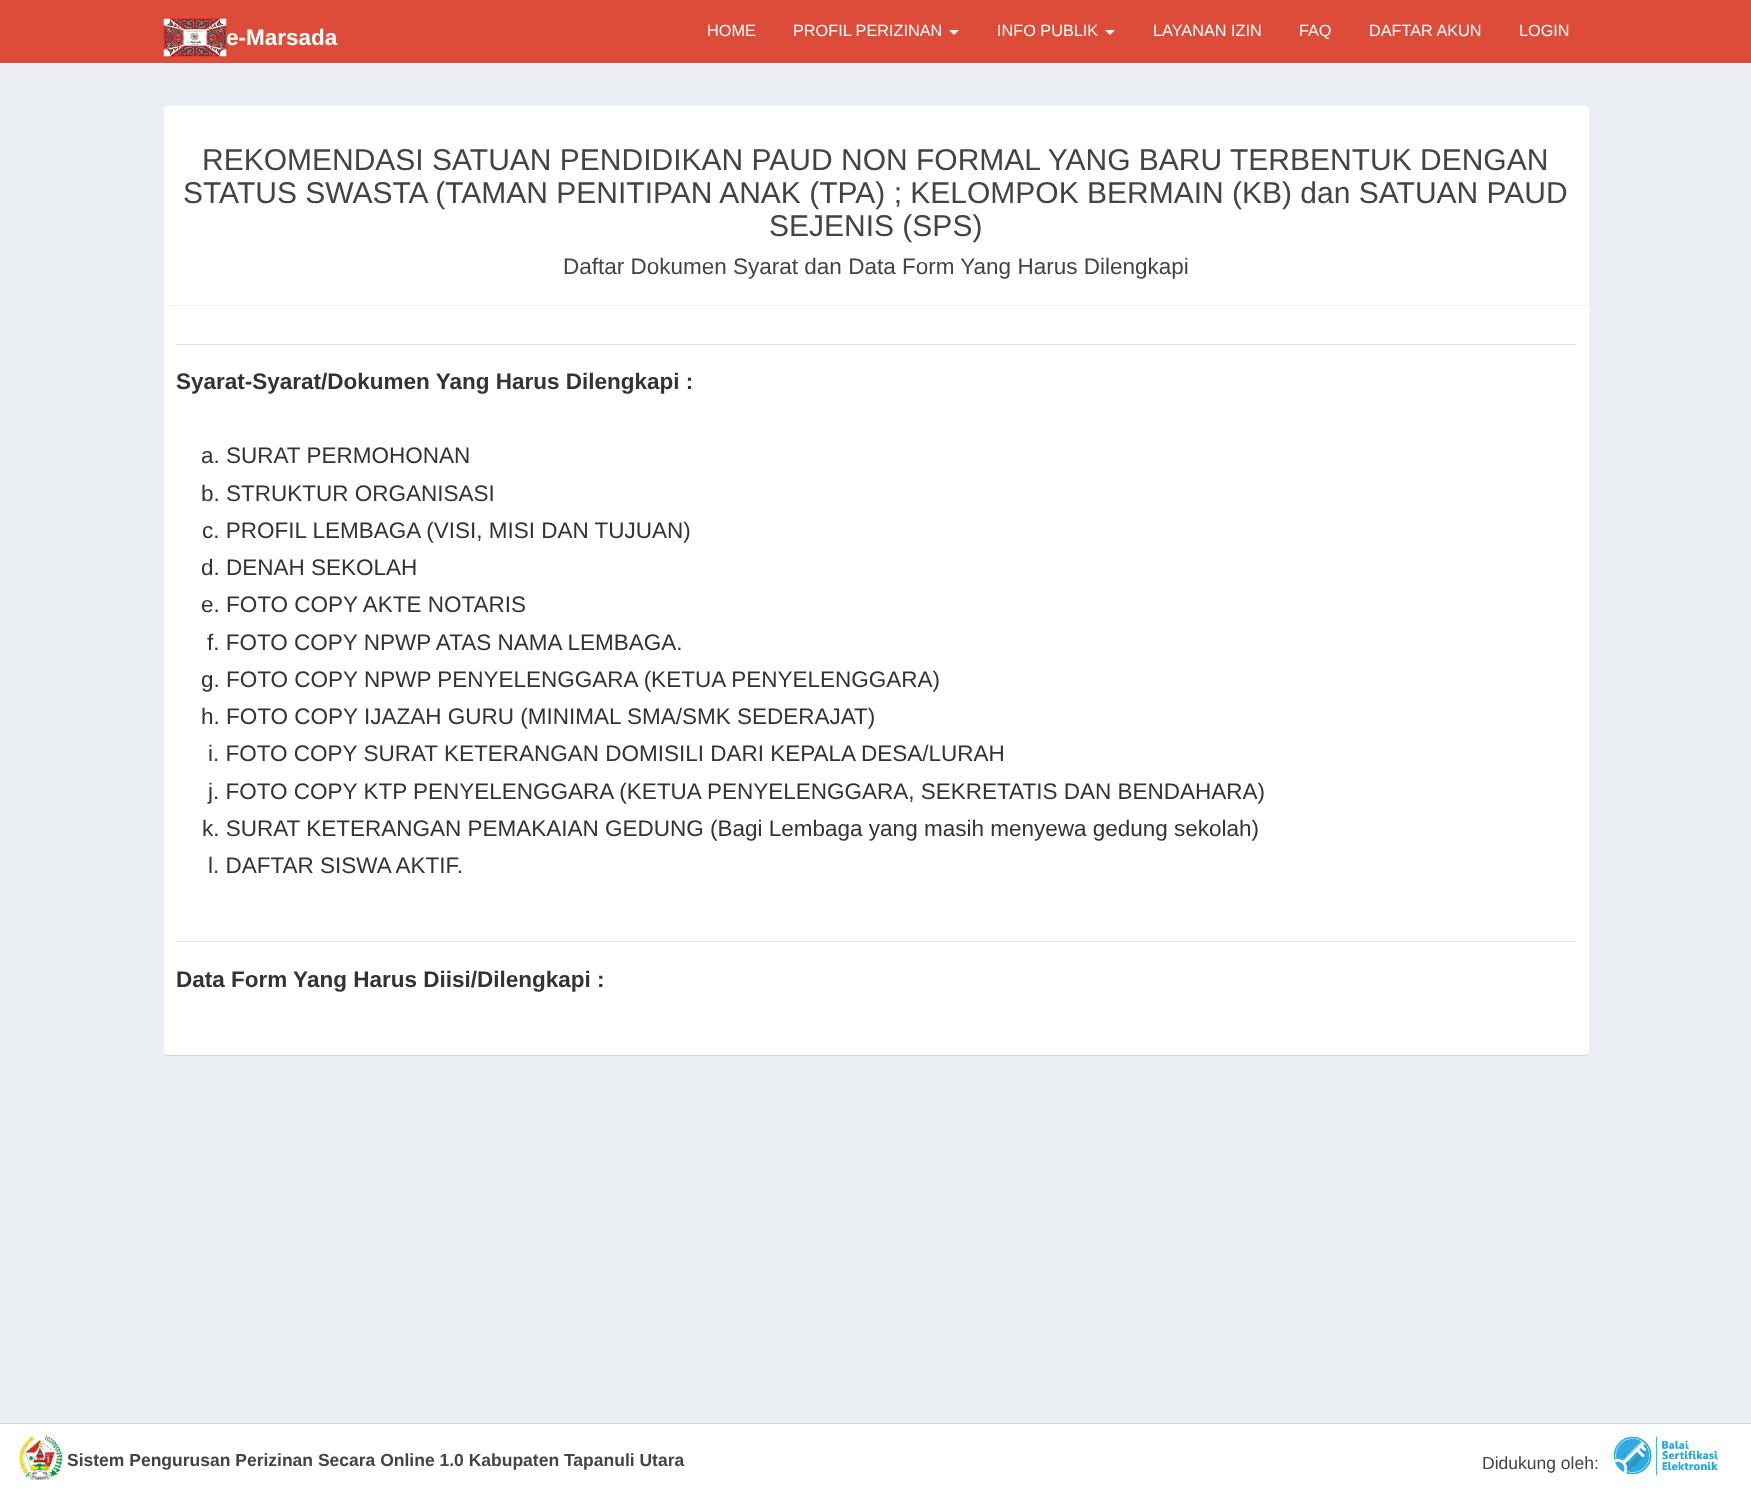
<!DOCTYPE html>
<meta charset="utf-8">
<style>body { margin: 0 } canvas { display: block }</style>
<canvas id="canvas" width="1751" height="1498"></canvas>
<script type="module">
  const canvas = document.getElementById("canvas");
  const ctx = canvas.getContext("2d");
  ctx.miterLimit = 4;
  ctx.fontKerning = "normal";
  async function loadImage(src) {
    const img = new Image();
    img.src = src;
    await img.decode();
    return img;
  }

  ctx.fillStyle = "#ffffff";
  ctx.fillRect(0, 0, 1751, 1498);
  ctx.fillStyle = "#dd4b39";
  ctx.fillRect(0, 0, 1751, 63);
  ctx.drawImage(await loadImage("img1.png"), 163, 18, 64, 39);
  ctx.font = "bold 22.5px Liberation Sans";
  ctx.fillStyle = "#ffffff";
  ctx.fillText("e-Marsada", 226, 45);
  ctx.font = "16.25px Liberation Sans";
  ctx.fillText("HOME", 707, 36);
  ctx.fillText("PROFIL PERIZINAN", 793, 36);
  ctx.beginPath();
  ctx.moveTo(949, 30);
  ctx.lineTo(959, 30);
  ctx.lineTo(954, 35);
  ctx.closePath();
  ctx.fill();
  ctx.fillText("INFO PUBLIK", 997, 36);
  ctx.beginPath();
  ctx.moveTo(1105, 30);
  ctx.lineTo(1115, 30);
  ctx.lineTo(1110, 35);
  ctx.closePath();
  ctx.fill();
  ctx.fillText("LAYANAN IZIN", 1153, 36);
  ctx.fillText("FAQ", 1299, 36);
  ctx.fillText("DAFTAR AKUN", 1369, 36);
  ctx.fillText("LOGIN", 1519, 36);
  ctx.fillStyle = "#ecf0f5";
  ctx.fillRect(0, 63, 1751, 1360);
  ctx.fillStyle = "rgba(0, 0, 0, 0.1)";
  ctx.filter = "blur(0.5px)";
  ctx.beginPath();
  ctx.roundRect(164, 108, 1425, 948, 4);
  ctx.fill();
  ctx.filter = "none";
  ctx.fillStyle = "#ffffff";
  ctx.beginPath();
  ctx.roundRect(164, 106, 1425, 949, 4);
  ctx.fill();
  ctx.fillStyle = "#f4f4f4";
  ctx.fillRect(164, 305, 1425, 1);
  ctx.font = "30px Liberation Sans";
  ctx.fillStyle = "#444444";
  ctx.fillText("REKOMENDASI SATUAN PENDIDIKAN PAUD NON FORMAL YANG BARU TERBENTUK DENGAN", 202, 170);
  ctx.fillText("STATUS SWASTA (TAMAN PENITIPAN ANAK (TPA) ; KELOMPOK BERMAIN (KB) dan SATUAN PAUD", 183, 203);
  ctx.fillText("SEJENIS (SPS)", 769, 236);
  ctx.font = "22.5px Liberation Sans";
  ctx.fillText("Daftar Dokumen Syarat dan Data Form Yang Harus Dilengkapi", 563, 274);
  ctx.fillStyle = "#e0e0e0";
  ctx.fillRect(176, 344, 1400, 1);
  ctx.font = "bold 22.5px Liberation Sans";
  ctx.fillStyle = "#333333";
  ctx.fillText("Syarat-Syarat/Dokumen Yang Harus Dilengkapi :", 176, 389);
  ctx.font = "22.5px Liberation Sans";
  ctx.fillText("a. SURAT PERMOHONAN", 201, 463);
  ctx.fillText("b. STRUKTUR ORGANISASI", 201, 501);
  ctx.fillText("c. PROFIL LEMBAGA (VISI, MISI DAN TUJUAN)", 202, 538);
  ctx.fillText("d. DENAH SEKOLAH", 201, 575);
  ctx.fillText("e. FOTO COPY AKTE NOTARIS", 201, 612);
  ctx.fillText("f. FOTO COPY NPWP ATAS NAMA LEMBAGA.", 207, 650);
  ctx.fillText("g. FOTO COPY NPWP PENYELENGGARA (KETUA PENYELENGGARA)", 201, 687);
  ctx.fillText("h. FOTO COPY IJAZAH GURU (MINIMAL SMA/SMK SEDERAJAT)", 201, 724);
  ctx.fillText("i. FOTO COPY SURAT KETERANGAN DOMISILI DARI KEPALA DESA/LURAH", 208, 761);
  ctx.fillText("j. FOTO COPY KTP PENYELENGGARA (KETUA PENYELENGGARA, SEKRETATIS DAN BENDAHARA)", 208, 799);
  ctx.fillText("k. SURAT KETERANGAN PEMAKAIAN GEDUNG (Bagi Lembaga yang masih menyewa gedung sekolah)", 202, 836);
  ctx.fillText("l. DAFTAR SISWA AKTIF.", 208, 873);
  ctx.fillStyle = "#e0e0e0";
  ctx.fillRect(176, 941, 1400, 1);
  ctx.font = "bold 22.5px Liberation Sans";
  ctx.fillStyle = "#333333";
  ctx.fillText("Data Form Yang Harus Diisi/Dilengkapi :", 176, 987);
  ctx.fillStyle = "#d2d6de";
  ctx.fillRect(0, 1423, 1751, 1);
  ctx.drawImage(await loadImage("img2.png"), 18, 1436, 45, 44);
  ctx.font = "bold 17.5px Liberation Sans";
  ctx.fillStyle = "#444444";
  ctx.fillText("Sistem Pengurusan Perizinan Secara Online 1.0 Kabupaten Tapanuli Utara", 67, 1466);
  ctx.font = "17.5px Liberation Sans";
  ctx.fillText("Didukung oleh:", 1482, 1469);
  ctx.drawImage(await loadImage("img3.png"), 1613, 1436, 105, 40);
</script>
